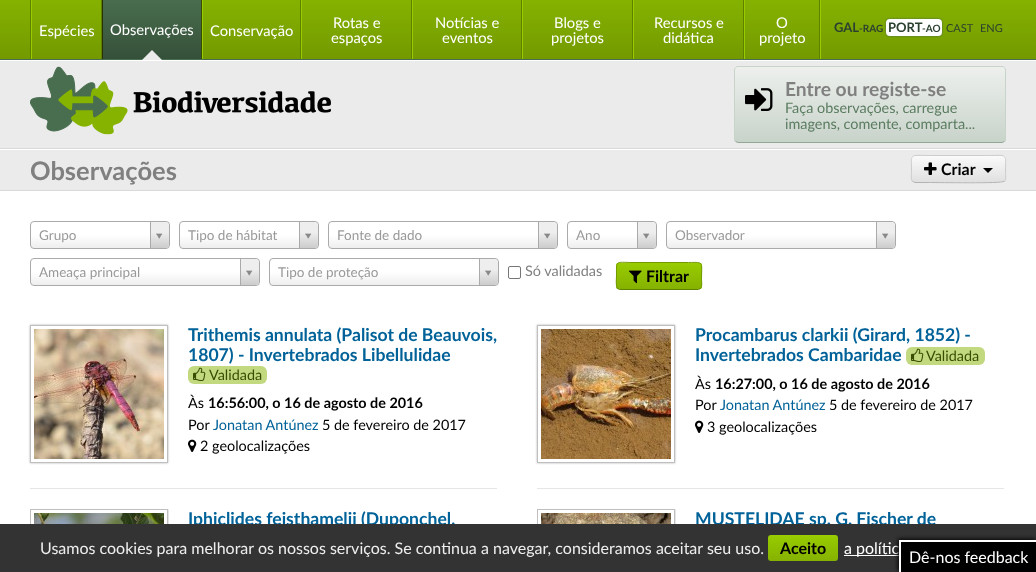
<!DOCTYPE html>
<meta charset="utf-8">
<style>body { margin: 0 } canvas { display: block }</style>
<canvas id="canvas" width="1036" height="572"></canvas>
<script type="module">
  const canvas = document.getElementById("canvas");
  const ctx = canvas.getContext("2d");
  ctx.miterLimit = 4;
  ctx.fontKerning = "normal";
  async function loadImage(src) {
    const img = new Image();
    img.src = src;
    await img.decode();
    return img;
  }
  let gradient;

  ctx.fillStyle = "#ffffff";
  ctx.fillRect(0, 0, 1036, 572);
  gradient = ctx.createLinearGradient(518, 0, 518, 60);
  gradient.addColorStop(0, "#85b200");
  gradient.addColorStop(1, "#739900");
  ctx.fillStyle = gradient;
  ctx.fillRect(0, 0, 1036, 60);
  ctx.fillStyle = "#99cc00";
  ctx.fillRect(820, 0, 1, 60);
  ctx.fillStyle = "#608000";
  ctx.fillRect(30, 0, 1, 60);
  ctx.fillRect(101, 0, 1, 60);
  ctx.fillStyle = "#99cc00";
  ctx.fillRect(31, 0, 1, 60);
  ctx.font = "14.75px Lato";
  ctx.fillStyle = "#ffffff";
  ctx.fillText("Espécies", 39, 36);
  gradient = ctx.createLinearGradient(152, 0, 152, 60);
  gradient.addColorStop(0, "#496d4e");
  gradient.addColorStop(1, "#355039");
  ctx.fillStyle = gradient;
  ctx.fillRect(103, 0, 98, 60);
  ctx.fillStyle = "#394d00";
  ctx.fillRect(201, 0, 1, 60);
  ctx.fillStyle = "#263300";
  ctx.fillRect(102, 0, 1, 60);
  ctx.fillStyle = "#ffffff";
  ctx.fillText("Observações", 110, 35);
  ctx.fillStyle = "#608000";
  ctx.fillRect(300, 0, 1, 60);
  ctx.fillStyle = "#99cc00";
  ctx.fillRect(202, 0, 1, 60);
  ctx.fillStyle = "#608000";
  ctx.fillRect(411, 0, 1, 60);
  ctx.fillStyle = "#99cc00";
  ctx.fillRect(301, 0, 1, 60);
  ctx.fillStyle = "#608000";
  ctx.fillRect(521, 0, 1, 60);
  ctx.fillStyle = "#99cc00";
  ctx.fillRect(412, 0, 1, 60);
  ctx.fillStyle = "#608000";
  ctx.fillRect(632, 0, 1, 60);
  ctx.fillStyle = "#99cc00";
  ctx.fillRect(522, 0, 1, 60);
  ctx.fillStyle = "#608000";
  ctx.fillRect(743, 0, 1, 60);
  ctx.fillStyle = "#99cc00";
  ctx.fillRect(633, 0, 1, 60);
  ctx.fillStyle = "#608000";
  ctx.fillRect(819, 0, 1, 60);
  ctx.fillStyle = "#99cc00";
  ctx.fillRect(744, 0, 1, 60);
  ctx.fillStyle = "#ebebeb";
  ctx.fillRect(0, 150, 1036, 40);
  ctx.fillStyle = "#496d4e";
  ctx.filter = "blur(0.5px)";
  ctx.beginPath();
  ctx.rect(0, 59, 1036, 89);
  ctx.fill();
  ctx.filter = "none";
  ctx.fillStyle = "#ebebeb";
  ctx.beginPath();
  ctx.moveTo(162, 60);
  ctx.lineTo(142, 60);
  ctx.lineTo(152, 50);
  ctx.closePath();
  ctx.fill();
  ctx.fillStyle = "#ffffff";
  ctx.fillText("Conservação", 210, 36);
  ctx.fillText("Rotas e", 333, 28);
  ctx.fillText("espaços", 331, 43);
  ctx.fillText("Notícias e", 435, 28);
  ctx.fillText("eventos", 442, 43);
  ctx.fillText("Blogs e", 554, 28);
  ctx.fillText("projetos", 551, 43);
  ctx.fillText("Recursos e", 654, 28);
  ctx.fillText("didática", 663, 43);
  ctx.fillText("O", 776, 28);
  ctx.fillText("projeto", 759, 43);
  ctx.font = "bold 13px Lato";
  ctx.fillStyle = "#2b402e";
  ctx.fillText("GAL", 834, 32);
  ctx.font = "bold 10px Lato";
  ctx.fillText("-RAG", 859, 32);
  ctx.fillStyle = "#496d4e";
  ctx.filter = "blur(1px)";
  ctx.beginPath();
  ctx.roundRect(886, 19, 56, 17, 4);
  ctx.fill();
  ctx.filter = "none";
  ctx.fillStyle = "#ffffff";
  ctx.beginPath();
  ctx.roundRect(886, 19, 56, 17, 4);
  ctx.fill();
  ctx.font = "bold 13px Lato";
  ctx.fillStyle = "#2b402e";
  ctx.fillText("PORT", 888, 32);
  ctx.font = "bold 10px Lato";
  ctx.fillText("-AO", 922, 32);
  ctx.font = "11px Lato";
  ctx.fillText("CAST", 946, 32);
  ctx.fillText("ENG", 980, 32);
  ctx.fillStyle = "#ebebeb";
  ctx.fillRect(0, 61, 1036, 87);
  ctx.fillStyle = "#ffffff";
  ctx.fillRect(0, 60, 1036, 1);
  ctx.fillStyle = "#d9d9d9";
  ctx.fillRect(0, 148, 1036, 1);
  ctx.drawImage(await loadImage("img1.png"), 30, 66, 301, 69);
  ctx.save();
  ctx.beginPath();
  ctx.roundRect(734, 66, 272, 77, 4);
  ctx.clip();
  gradient = ctx.createLinearGradient(870, 67, 870, 142);
  gradient.addColorStop(0, "#edf0ed");
  gradient.addColorStop(1, "#c8d3ca");
  ctx.fillStyle = gradient;
  ctx.fillRect(734, 67, 272, 75);
  gradient = ctx.createLinearGradient(870, 142, 870, 217);
  gradient.addColorStop(0, "#edf0ed");
  gradient.addColorStop(1, "#c8d3ca");
  ctx.fillStyle = gradient;
  ctx.fillRect(734, 142, 272, 1);
  ctx.restore();
  ctx.beginPath();
  ctx.moveTo(1004.5, 141.5);
  ctx.lineTo(1002, 142.5);
  ctx.lineTo(738, 142.5);
  ctx.lineTo(735.5, 141.5);
  ctx.strokeStyle = "#92a795";
  ctx.stroke();
  ctx.beginPath();
  ctx.moveTo(735.5, 141.5);
  ctx.bezierCurveTo(735, 141, 734.5, 140, 734.5, 139);
  ctx.lineTo(734.5, 70);
  ctx.bezierCurveTo(734.5, 69, 735, 68, 735.5, 67.5);
  ctx.bezierCurveTo(736, 67, 737, 66.5, 738, 66.5);
  ctx.lineTo(1002, 66.5);
  ctx.bezierCurveTo(1003, 66.5, 1004, 67, 1004.5, 67.5);
  ctx.bezierCurveTo(1005, 68, 1005.5, 69, 1005.5, 70);
  ctx.lineTo(1005.5, 139);
  ctx.bezierCurveTo(1005.5, 140, 1005, 141, 1004.5, 141.5);
  ctx.strokeStyle = "#c8d3ca";
  ctx.stroke();
  ctx.drawImage(await loadImage("img2.png"), 745, 88, 28, 23);
  ctx.font = "bold 19.25px Lato";
  ctx.fillStyle = "#808080";
  ctx.fillText("Entre ou registe-se", 785, 96);
  ctx.font = "14.4px Lato";
  ctx.fillStyle = "#5b7c60";
  ctx.fillText("Faça observações, carregue", 785, 113);
  ctx.fillText("imagens, comente, comparta...", 785, 129);
  ctx.fillStyle = "#d9d9d9";
  ctx.fillRect(0, 190, 1036, 1);
  ctx.font = "bold 25.5px Lato";
  ctx.fillStyle = "#808080";
  ctx.fillText("Observações", 30, 180);
  ctx.save();
  ctx.beginPath();
  ctx.roundRect(911, 155, 95, 28, 4);
  ctx.clip();
  gradient = ctx.createLinearGradient(959, 156, 959, 182);
  gradient.addColorStop(0, "#fafafa");
  gradient.addColorStop(1, "#e0e0e0");
  ctx.fillStyle = gradient;
  ctx.fillRect(911, 156, 95, 26);
  gradient = ctx.createLinearGradient(959, 182, 959, 208);
  gradient.addColorStop(0, "#fafafa");
  gradient.addColorStop(1, "#e0e0e0");
  ctx.fillStyle = gradient;
  ctx.fillRect(911, 182, 95, 1);
  ctx.restore();
  ctx.beginPath();
  ctx.moveTo(1004.5, 181.5);
  ctx.lineTo(1004, 181.5);
  ctx.bezierCurveTo(1002, 183.5, 938, 182.5, 929.5, 182.5);
  ctx.lineTo(915, 182.5);
  ctx.lineTo(912.5, 181.5);
  ctx.strokeStyle = "#b3b3b3";
  ctx.stroke();
  ctx.beginPath();
  ctx.moveTo(912.5, 181.5);
  ctx.bezierCurveTo(910.5, 179.5, 911.5, 175, 911.5, 172.5);
  ctx.bezierCurveTo(911.5, 152.5, 908.5, 155.5, 929.5, 155.5);
  ctx.lineTo(987.5, 155.5);
  ctx.bezierCurveTo(1008.5, 155.5, 1005.5, 152.5, 1005.5, 172.5);
  ctx.bezierCurveTo(1005.5, 175, 1006.5, 179.5, 1004.5, 181.5);
  ctx.strokeStyle = "#cccccc";
  ctx.stroke();
  ctx.drawImage(await loadImage("img3.png"), 924, 162, 13, 13);
  ctx.font = "bold 16px Lato";
  ctx.fillStyle = "#000000";
  ctx.fillText("Criar", 941, 175);
  ctx.beginPath();
  ctx.moveTo(983, 168);
  ctx.lineTo(993, 168);
  ctx.lineTo(988, 173);
  ctx.closePath();
  ctx.fill();
  gradient = ctx.createLinearGradient(31, 248, 31, 222);
  gradient.addColorStop(0, "#eeeeee");
  gradient.addColorStop(0.5, "#ffffff");
  ctx.fillStyle = gradient;
  ctx.beginPath();
  ctx.roundRect(31, 222, 138, 26, 3);
  ctx.fill();
  ctx.beginPath();
  ctx.roundRect(30.5, 221.5, 139, 27, 3.5);
  ctx.strokeStyle = "#aaaaaa";
  ctx.stroke();
  ctx.font = "13.5px Lato";
  ctx.fillStyle = "#999999";
  ctx.fillText("Grupo", 39, 240);
  ctx.save();
  ctx.beginPath();
  ctx.roundRect(31, 222, 138, 26, 3);
  ctx.clip();
  gradient = ctx.createLinearGradient(151, 248, 151, 222);
  gradient.addColorStop(0, "#cccccc");
  gradient.addColorStop(0.6, "#eeeeee");
  ctx.fillStyle = gradient;
  ctx.beginPath();
  ctx.roundRect(150, 222, 19, 26, [0, 4, 4, 0]);
  ctx.fill();
  ctx.restore();
  ctx.fillStyle = "#aaaaaa";
  ctx.fillRect(150, 222, 1, 26);
  ctx.drawImage(await loadImage("img4.png"), 156, 233, 7, 6);
  gradient = ctx.createLinearGradient(180, 248, 180, 222);
  gradient.addColorStop(0, "#eeeeee");
  gradient.addColorStop(0.5, "#ffffff");
  ctx.fillStyle = gradient;
  ctx.beginPath();
  ctx.roundRect(180, 222, 138, 26, 3);
  ctx.fill();
  ctx.beginPath();
  ctx.roundRect(179.5, 221.5, 139, 27, 3.5);
  ctx.stroke();
  ctx.fillStyle = "#999999";
  ctx.fillText("Tipo de hábitat", 188, 240);
  ctx.save();
  ctx.beginPath();
  ctx.roundRect(180, 222, 138, 26, 3);
  ctx.clip();
  gradient = ctx.createLinearGradient(300, 248, 300, 222);
  gradient.addColorStop(0, "#cccccc");
  gradient.addColorStop(0.6, "#eeeeee");
  ctx.fillStyle = gradient;
  ctx.beginPath();
  ctx.roundRect(299, 222, 19, 26, [0, 4, 4, 0]);
  ctx.fill();
  ctx.restore();
  ctx.fillStyle = "#aaaaaa";
  ctx.fillRect(299, 222, 1, 26);
  ctx.drawImage(await loadImage("img4.png"), 305, 233, 7, 6);
  gradient = ctx.createLinearGradient(329, 248, 329, 222);
  gradient.addColorStop(0, "#eeeeee");
  gradient.addColorStop(0.5, "#ffffff");
  ctx.fillStyle = gradient;
  ctx.beginPath();
  ctx.roundRect(329, 222, 228, 26, 3);
  ctx.fill();
  ctx.beginPath();
  ctx.roundRect(328.5, 221.5, 229, 27, 3.5);
  ctx.stroke();
  ctx.fillStyle = "#999999";
  ctx.fillText("Fonte de dado", 337, 240);
  ctx.save();
  ctx.beginPath();
  ctx.roundRect(329, 222, 228, 26, 3);
  ctx.clip();
  gradient = ctx.createLinearGradient(539, 248, 539, 222);
  gradient.addColorStop(0, "#cccccc");
  gradient.addColorStop(0.6, "#eeeeee");
  ctx.fillStyle = gradient;
  ctx.beginPath();
  ctx.roundRect(538, 222, 19, 26, [0, 4, 4, 0]);
  ctx.fill();
  ctx.restore();
  ctx.fillStyle = "#aaaaaa";
  ctx.fillRect(538, 222, 1, 26);
  ctx.drawImage(await loadImage("img4.png"), 544, 233, 7, 6);
  gradient = ctx.createLinearGradient(568, 248, 568, 222);
  gradient.addColorStop(0, "#eeeeee");
  gradient.addColorStop(0.5, "#ffffff");
  ctx.fillStyle = gradient;
  ctx.beginPath();
  ctx.roundRect(568, 222, 88, 26, 3);
  ctx.fill();
  ctx.beginPath();
  ctx.roundRect(567.5, 221.5, 89, 27, 3.5);
  ctx.stroke();
  ctx.fillStyle = "#999999";
  ctx.fillText("Ano", 576, 240);
  ctx.save();
  ctx.beginPath();
  ctx.roundRect(568, 222, 88, 26, 3);
  ctx.clip();
  gradient = ctx.createLinearGradient(638, 248, 638, 222);
  gradient.addColorStop(0, "#cccccc");
  gradient.addColorStop(0.6, "#eeeeee");
  ctx.fillStyle = gradient;
  ctx.beginPath();
  ctx.roundRect(637, 222, 19, 26, [0, 4, 4, 0]);
  ctx.fill();
  ctx.restore();
  ctx.fillStyle = "#aaaaaa";
  ctx.fillRect(637, 222, 1, 26);
  ctx.drawImage(await loadImage("img4.png"), 643, 233, 7, 6);
  gradient = ctx.createLinearGradient(667, 248, 667, 222);
  gradient.addColorStop(0, "#eeeeee");
  gradient.addColorStop(0.5, "#ffffff");
  ctx.fillStyle = gradient;
  ctx.beginPath();
  ctx.roundRect(667, 222, 228, 26, 3);
  ctx.fill();
  ctx.beginPath();
  ctx.roundRect(666.5, 221.5, 229, 27, 3.5);
  ctx.stroke();
  ctx.fillStyle = "#999999";
  ctx.fillText("Observador", 675, 240);
  ctx.save();
  ctx.beginPath();
  ctx.roundRect(667, 222, 228, 26, 3);
  ctx.clip();
  gradient = ctx.createLinearGradient(877, 248, 877, 222);
  gradient.addColorStop(0, "#cccccc");
  gradient.addColorStop(0.6, "#eeeeee");
  ctx.fillStyle = gradient;
  ctx.beginPath();
  ctx.roundRect(876, 222, 19, 26, [0, 4, 4, 0]);
  ctx.fill();
  ctx.restore();
  ctx.fillStyle = "#aaaaaa";
  ctx.fillRect(876, 222, 1, 26);
  ctx.drawImage(await loadImage("img4.png"), 882, 233, 7, 6);
  gradient = ctx.createLinearGradient(31, 285, 31, 259);
  gradient.addColorStop(0, "#eeeeee");
  gradient.addColorStop(0.5, "#ffffff");
  ctx.fillStyle = gradient;
  ctx.beginPath();
  ctx.roundRect(31, 259, 228, 26, 3);
  ctx.fill();
  ctx.beginPath();
  ctx.roundRect(30.5, 258.5, 229, 27, 3.5);
  ctx.stroke();
  ctx.fillStyle = "#999999";
  ctx.fillText("Ameaça principal", 39, 277);
  ctx.save();
  ctx.beginPath();
  ctx.roundRect(31, 259, 228, 26, 3);
  ctx.clip();
  gradient = ctx.createLinearGradient(241, 285, 241, 259);
  gradient.addColorStop(0, "#cccccc");
  gradient.addColorStop(0.6, "#eeeeee");
  ctx.fillStyle = gradient;
  ctx.beginPath();
  ctx.roundRect(240, 259, 19, 26, [0, 4, 4, 0]);
  ctx.fill();
  ctx.restore();
  ctx.fillStyle = "#aaaaaa";
  ctx.fillRect(240, 259, 1, 26);
  ctx.drawImage(await loadImage("img4.png"), 246, 270, 7, 6);
  gradient = ctx.createLinearGradient(270, 285, 270, 259);
  gradient.addColorStop(0, "#eeeeee");
  gradient.addColorStop(0.5, "#ffffff");
  ctx.fillStyle = gradient;
  ctx.beginPath();
  ctx.roundRect(270, 259, 228, 26, 3);
  ctx.fill();
  ctx.beginPath();
  ctx.roundRect(269.5, 258.5, 229, 27, 3.5);
  ctx.stroke();
  ctx.fillStyle = "#999999";
  ctx.fillText("Tipo de proteção", 278, 277);
  ctx.save();
  ctx.beginPath();
  ctx.roundRect(270, 259, 228, 26, 3);
  ctx.clip();
  gradient = ctx.createLinearGradient(480, 285, 480, 259);
  gradient.addColorStop(0, "#cccccc");
  gradient.addColorStop(0.6, "#eeeeee");
  ctx.fillStyle = gradient;
  ctx.beginPath();
  ctx.roundRect(479, 259, 19, 26, [0, 4, 4, 0]);
  ctx.fill();
  ctx.restore();
  ctx.fillStyle = "#aaaaaa";
  ctx.fillRect(479, 259, 1, 26);
  ctx.drawImage(await loadImage("img4.png"), 485, 270, 7, 6);
  ctx.beginPath();
  ctx.roundRect(508.5, 266.5, 12, 12, 1.5);
  ctx.strokeStyle = "#767676";
  ctx.stroke();
  ctx.font = "14.4px Lato";
  ctx.fillStyle = "#808080";
  ctx.fillText("Só validadas", 525, 276);
  ctx.save();
  ctx.beginPath();
  ctx.roundRect(616, 262, 86, 28, 4);
  ctx.clip();
  gradient = ctx.createLinearGradient(659, 263, 659, 289);
  gradient.addColorStop(0, "#99cc00");
  gradient.addColorStop(1, "#85b200");
  ctx.fillStyle = gradient;
  ctx.fillRect(616, 263, 86, 26);
  ctx.restore();
  ctx.beginPath();
  ctx.moveTo(700.5, 288.5);
  ctx.lineTo(698.5, 289.5);
  ctx.lineTo(619.5, 289.5);
  ctx.lineTo(617.5, 288.5);
  ctx.strokeStyle = "#608000";
  ctx.stroke();
  ctx.beginPath();
  ctx.moveTo(617.5, 288.5);
  ctx.bezierCurveTo(615.5, 286, 616.5, 278.5, 616.5, 276);
  ctx.bezierCurveTo(616.5, 259.5, 615, 262.5, 633, 262.5);
  ctx.lineTo(685, 262.5);
  ctx.bezierCurveTo(705, 262.5, 701.5, 260, 701.5, 279.5);
  ctx.bezierCurveTo(701.5, 282, 702.5, 286.5, 700.5, 288.5);
  ctx.strokeStyle = "#739900";
  ctx.stroke();
  ctx.drawImage(await loadImage("img5.png"), 629, 270, 13, 14);
  ctx.font = "bold 16px Lato";
  ctx.fillStyle = "#000000";
  ctx.fillText("Filtrar", 646, 282);
  ctx.save();
  ctx.beginPath();
  ctx.moveTo(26, 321);
  ctx.lineTo(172, 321);
  ctx.lineTo(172, 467);
  ctx.lineTo(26, 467);
  ctx.closePath();
  ctx.moveTo(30, 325);
  ctx.lineTo(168, 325);
  ctx.lineTo(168, 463);
  ctx.lineTo(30, 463);
  ctx.closePath();
  ctx.clip("evenodd");
  ctx.fillStyle = "rgba(0, 0, 0, 0.3)";
  ctx.filter = "blur(1px)";
  ctx.beginPath();
  ctx.rect(30, 325, 138, 138);
  ctx.fill();
  ctx.filter = "none";
  ctx.restore();
  ctx.strokeStyle = "#bfbfbf";
  ctx.strokeRect(30.5, 325.5, 137, 137);
  ctx.drawImage(await loadImage("img6.png"), 34, 329, 130, 130);
  ctx.font = "bold 17.6px Lato";
  ctx.fillStyle = "#006298";
  ctx.fillText("Trithemis annulata (Palisot de Beauvois,", 188, 341);
  ctx.fillText("1807) - Invertebrados Libellulidae", 188, 361);
  ctx.fillStyle = "#c2d980";
  ctx.beginPath();
  ctx.roundRect(188, 366, 79, 18, 6);
  ctx.fill();
  ctx.drawImage(await loadImage("img7.png"), 193, 367, 13, 14);
  ctx.font = "14.4px Lato";
  ctx.fillStyle = "#394d00";
  ctx.fillText("Validada", 209, 380);
  ctx.fillStyle = "#000000";
  ctx.fillText("Às", 188, 408);
  ctx.font = "bold 14.4px Lato";
  ctx.fillText("16:56:00, o 16 de agosto de 2016", 208, 408);
  ctx.font = "14.4px Lato";
  ctx.fillText("Por", 188, 430);
  ctx.fillStyle = "#006298";
  ctx.fillText("Jonatan Antúnez", 213, 430);
  ctx.fillStyle = "#000000";
  ctx.fillText("5 de fevereiro de 2017", 322, 430);
  ctx.drawImage(await loadImage("img8.png"), 188, 439, 9, 13);
  ctx.fillText("2 geolocalizações", 200, 451);
  ctx.fillStyle = "#e6e6e6";
  ctx.fillRect(30, 488, 467, 1);
  ctx.save();
  ctx.beginPath();
  ctx.rect(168, 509, 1, 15);
  ctx.clip();
  ctx.fillStyle = "rgba(0, 0, 0, 0.3)";
  ctx.filter = "blur(1px)";
  ctx.beginPath();
  ctx.rect(30, 509, 138, 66);
  ctx.fill();
  ctx.filter = "none";
  ctx.restore();
  ctx.strokeRect(30.5, 509.5, 137, 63);
  ctx.drawImage(await loadImage("img9.png"), 34, 513, 130, 11);
  ctx.font = "bold 17.6px Lato";
  ctx.fillStyle = "#006298";
  ctx.fillText("Iphiclides feisthamelii (Duponchel,", 188, 525);
  ctx.save();
  ctx.beginPath();
  ctx.moveTo(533, 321);
  ctx.lineTo(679, 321);
  ctx.lineTo(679, 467);
  ctx.lineTo(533, 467);
  ctx.closePath();
  ctx.moveTo(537, 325);
  ctx.lineTo(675, 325);
  ctx.lineTo(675, 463);
  ctx.lineTo(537, 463);
  ctx.closePath();
  ctx.clip("evenodd");
  ctx.fillStyle = "rgba(0, 0, 0, 0.3)";
  ctx.filter = "blur(1px)";
  ctx.beginPath();
  ctx.rect(537, 325, 138, 138);
  ctx.fill();
  ctx.filter = "none";
  ctx.restore();
  ctx.strokeRect(537.5, 325.5, 137, 137);
  ctx.drawImage(await loadImage("img10.png"), 541, 329, 130, 130);
  ctx.fillText("Procambarus clarkii (Girard, 1852) -", 695, 341);
  ctx.fillText("Invertebrados Cambaridae", 695, 361);
  ctx.fillStyle = "#c2d980";
  ctx.beginPath();
  ctx.roundRect(906, 347, 79, 18, 6);
  ctx.fill();
  ctx.drawImage(await loadImage("img7.png"), 911, 348, 13, 14);
  ctx.font = "14.4px Lato";
  ctx.fillStyle = "#394d00";
  ctx.fillText("Validada", 926, 361);
  ctx.fillStyle = "#000000";
  ctx.fillText("Às", 695, 389);
  ctx.font = "bold 14.4px Lato";
  ctx.fillText("16:27:00, o 16 de agosto de 2016", 715, 389);
  ctx.font = "14.4px Lato";
  ctx.fillText("Por", 695, 410);
  ctx.fillStyle = "#006298";
  ctx.fillText("Jonatan Antúnez", 720, 410);
  ctx.fillStyle = "#000000";
  ctx.fillText("5 de fevereiro de 2017", 829, 410);
  ctx.drawImage(await loadImage("img8.png"), 695, 420, 9, 13);
  ctx.fillText("3 geolocalizações", 707, 432);
  ctx.fillStyle = "#e6e6e6";
  ctx.fillRect(537, 488, 467, 1);
  ctx.save();
  ctx.beginPath();
  ctx.rect(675, 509, 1, 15);
  ctx.clip();
  ctx.fillStyle = "rgba(0, 0, 0, 0.3)";
  ctx.filter = "blur(1px)";
  ctx.beginPath();
  ctx.rect(537, 509, 138, 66);
  ctx.fill();
  ctx.filter = "none";
  ctx.restore();
  ctx.strokeRect(537.5, 509.5, 137, 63);
  ctx.drawImage(await loadImage("img11.png"), 541, 513, 130, 11);
  ctx.font = "bold 17.6px Lato";
  ctx.fillStyle = "#006298";
  ctx.fillText("MUSTELIDAE sp. G. Fischer de", 695, 525);
  ctx.fillStyle = "#333333";
  ctx.fillRect(0, 524, 1036, 48);
  ctx.font = "16px Lato";
  ctx.fillStyle = "#eeeeee";
  ctx.fillText("Usamos cookies para melhorar os nossos serviços. Se continua a navegar, consideramos aceitar seu uso.", 40, 554);
  gradient = ctx.createLinearGradient(803, 535, 803, 561);
  gradient.addColorStop(0, "#99cc00");
  gradient.addColorStop(1, "#85b200");
  ctx.fillStyle = gradient;
  ctx.beginPath();
  ctx.roundRect(768, 535, 70, 26, 3);
  ctx.fill();
  ctx.font = "bold 16px Lato";
  ctx.fillStyle = "#000000";
  ctx.fillText("Aceito", 780, 554);
  ctx.fillStyle = "#ffffff";
  ctx.fillRect(844, 555, 55, 1);
  ctx.font = "16px Lato";
  ctx.fillText("a polític", 844, 554);
  ctx.fillStyle = "#000000";
  ctx.filter = "blur(2px)";
  ctx.beginPath();
  ctx.rect(898, 539, 137, 32);
  ctx.fill();
  ctx.filter = "none";
  ctx.fillRect(901, 542, 135, 30);
  ctx.fillStyle = "#ffffff";
  ctx.fillRect(899, 540, 137, 2);
  ctx.fillRect(899, 540, 2, 32);
  ctx.fillText("Dê-nos feedback", 909, 563);
</script>
